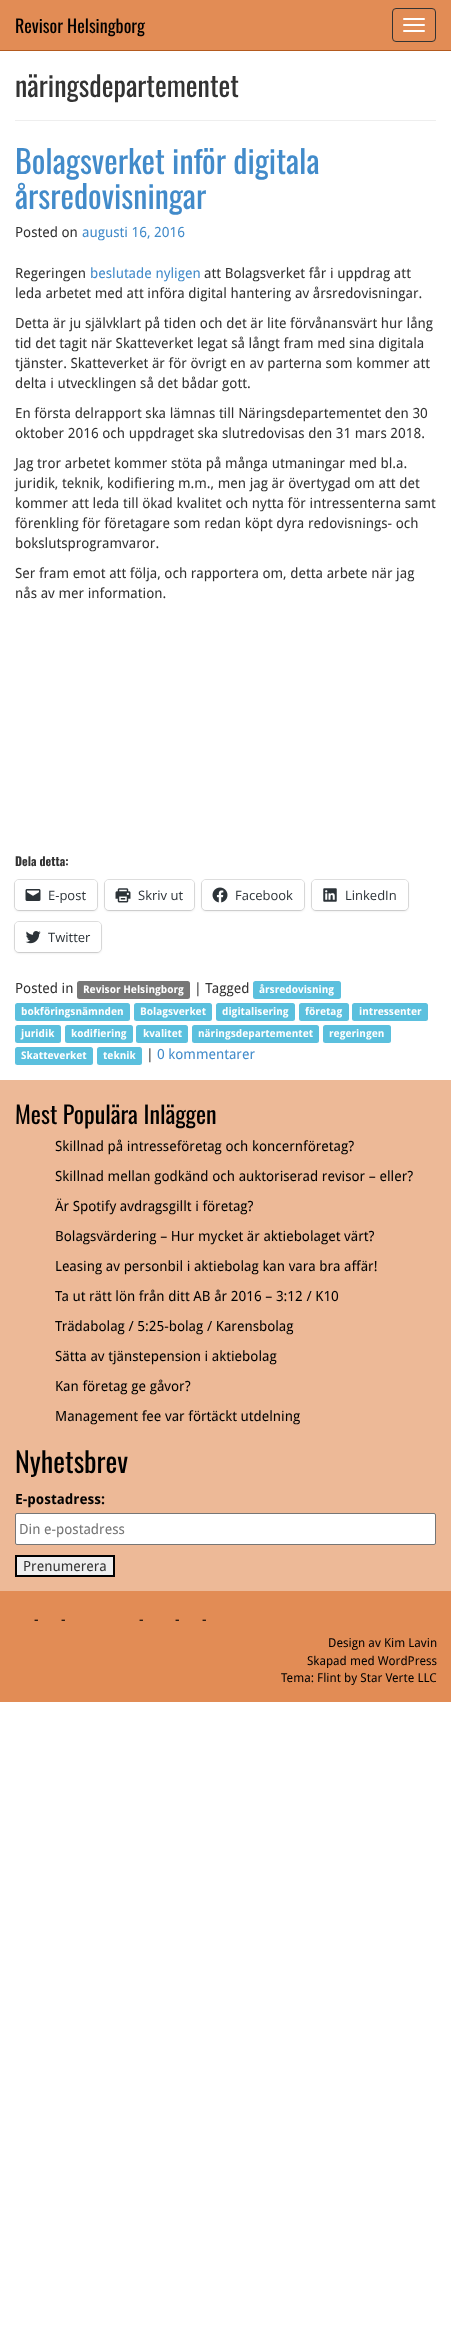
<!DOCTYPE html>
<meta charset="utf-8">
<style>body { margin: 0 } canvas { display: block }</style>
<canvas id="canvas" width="451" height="2329"></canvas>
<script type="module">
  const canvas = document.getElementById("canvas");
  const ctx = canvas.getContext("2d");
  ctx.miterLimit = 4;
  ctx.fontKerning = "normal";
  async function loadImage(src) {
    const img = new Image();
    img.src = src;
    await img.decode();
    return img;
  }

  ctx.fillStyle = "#ffffff";
  ctx.fillRect(0, 0, 451, 2329);
  ctx.fillStyle = "#e28c55";
  ctx.fillRect(0, 0, 451, 50);
  ctx.fillStyle = "#b45a1e";
  ctx.fillRect(0, 50, 451, 1);
  ctx.font = "18px Oswald";
  ctx.fillStyle = "#000000";
  ctx.fillText("Revisor Helsingborg", 15, 33);
  ctx.beginPath();
  ctx.roundRect(392.5, 8.5, 43, 33, 3.5);
  ctx.strokeStyle = "#333333";
  ctx.stroke();
  ctx.fillStyle = "#ffffff";
  ctx.beginPath();
  ctx.roundRect(403, 18, 22, 2, 1);
  ctx.fill();
  ctx.beginPath();
  ctx.roundRect(403, 24, 22, 2, 1);
  ctx.fill();
  ctx.beginPath();
  ctx.roundRect(403, 30, 22, 2, 1);
  ctx.fill();
  ctx.fillStyle = "#eeeeee";
  ctx.fillRect(15, 120, 421, 1);
  ctx.font = "28px Oswald";
  ctx.fillStyle = "#333333";
  ctx.fillText("näringsdepartementet", 15, 97);
  ctx.font = "32px Oswald";
  ctx.fillStyle = "#428bca";
  ctx.fillText("Bolagsverket inför digitala", 15, 174);
  ctx.fillText("årsredovisningar", 15, 209);
  ctx.font = "14px Droid Sans";
  ctx.fillStyle = "#333333";
  ctx.fillText("Posted on", 15, 237);
  ctx.fillStyle = "#428bca";
  ctx.fillText("augusti 16, 2016", 82, 237);
  ctx.fillStyle = "#333333";
  ctx.fillText("Regeringen", 15, 278);
  ctx.fillStyle = "#428bca";
  ctx.fillText("beslutade nyligen", 90, 278);
  ctx.fillStyle = "#333333";
  ctx.fillText("att Bolagsverket får i uppdrag att", 204, 278);
  ctx.fillText("leda arbetet med att införa digital hantering av årsredovisningar.", 15, 298);
  ctx.fillText("Detta är ju självklart på tiden och det är lite förvånansvärt hur lång", 15, 328);
  ctx.fillText("tid det tagit när Skatteverket legat så långt fram med sina digitala", 15, 348);
  ctx.fillText("tjänster. Skatteverket är för övrigt en av parterna som kommer att", 15, 368);
  ctx.fillText("delta i utvecklingen så det bådar gott.", 15, 388);
  ctx.fillText("En första delrapport ska lämnas till Näringsdepartementet den 30", 15, 418);
  ctx.fillText("oktober 2016 och uppdraget ska slutredovisas den 31 mars 2018.", 15, 438);
  ctx.fillText("Jag tror arbetet kommer stöta på många utmaningar med bl.a.", 15, 468);
  ctx.fillText("juridik, teknik, kodifiering m.m., men jag är övertygad om att det", 15, 488);
  ctx.fillText("kommer att leda till ökad kvalitet och nytta för intressenterna samt", 15, 508);
  ctx.fillText("förenkling för företagare som redan köpt dyra redovisnings- och", 15, 528);
  ctx.fillText("bokslutsprogramvaror.", 15, 548);
  ctx.fillText("Ser fram emot att följa, och rapportera om, detta arbete när jag", 15, 578);
  ctx.fillText("nås av mer information.", 15, 598);
  ctx.font = "bold 12px Oswald";
  ctx.fillText("Dela detta:", 15, 866);
  ctx.beginPath();
  ctx.roundRect(14.5, 879.5, 83, 31, 4.5);
  ctx.strokeStyle = "#e0e0e0";
  ctx.stroke();
  ctx.fillStyle = "rgba(0, 0, 0, 0.12)";
  ctx.filter = "blur(1px)";
  ctx.beginPath();
  ctx.roundRect(15, 881, 82, 30, 4);
  ctx.fill();
  ctx.filter = "none";
  ctx.fillStyle = "#ffffff";
  ctx.beginPath();
  ctx.roundRect(15, 880, 82, 30, 4);
  ctx.fill();
  ctx.drawImage(await loadImage("img1.png"), 25, 889, 16, 12);
  ctx.font = "13px Open Sans";
  ctx.fillStyle = "#2c3338";
  ctx.fillText("E-post", 48, 900);
  ctx.beginPath();
  ctx.roundRect(104.5, 879.5, 90, 31, 4.5);
  ctx.stroke();
  ctx.fillStyle = "rgba(0, 0, 0, 0.12)";
  ctx.filter = "blur(1px)";
  ctx.beginPath();
  ctx.roundRect(105, 881, 89, 30, 4);
  ctx.fill();
  ctx.filter = "none";
  ctx.fillStyle = "#ffffff";
  ctx.beginPath();
  ctx.roundRect(105, 880, 89, 30, 4);
  ctx.fill();
  ctx.drawImage(await loadImage("img2.png"), 115, 888, 16, 15);
  ctx.fillStyle = "#2c3338";
  ctx.fillText("Skriv ut", 138, 900);
  ctx.beginPath();
  ctx.roundRect(201.5, 879.5, 103, 31, 4.5);
  ctx.stroke();
  ctx.fillStyle = "rgba(0, 0, 0, 0.12)";
  ctx.filter = "blur(1px)";
  ctx.beginPath();
  ctx.roundRect(202, 881, 102, 30, 4);
  ctx.fill();
  ctx.filter = "none";
  ctx.fillStyle = "#ffffff";
  ctx.beginPath();
  ctx.roundRect(202, 880, 102, 30, 4);
  ctx.fill();
  ctx.drawImage(await loadImage("img3.png"), 212, 887, 16, 16);
  ctx.fillStyle = "#2c3338";
  ctx.fillText("Facebook", 235, 900);
  ctx.beginPath();
  ctx.roundRect(311.5, 879.5, 97, 31, 4.5);
  ctx.stroke();
  ctx.fillStyle = "rgba(0, 0, 0, 0.12)";
  ctx.filter = "blur(1px)";
  ctx.beginPath();
  ctx.roundRect(312, 881, 96, 30, 4);
  ctx.fill();
  ctx.filter = "none";
  ctx.fillStyle = "#ffffff";
  ctx.beginPath();
  ctx.roundRect(312, 880, 96, 30, 4);
  ctx.fill();
  ctx.drawImage(await loadImage("img4.png"), 323, 888, 14, 14);
  ctx.fillStyle = "#2c3338";
  ctx.fillText("LinkedIn", 345, 900);
  ctx.beginPath();
  ctx.roundRect(14.5, 921.5, 87, 31, 4.5);
  ctx.stroke();
  ctx.fillStyle = "rgba(0, 0, 0, 0.12)";
  ctx.filter = "blur(1px)";
  ctx.beginPath();
  ctx.roundRect(15, 923, 86, 30, 4);
  ctx.fill();
  ctx.filter = "none";
  ctx.fillStyle = "#ffffff";
  ctx.beginPath();
  ctx.roundRect(15, 922, 86, 30, 4);
  ctx.fill();
  ctx.drawImage(await loadImage("img5.png"), 25, 931, 16, 13);
  ctx.fillStyle = "#2c3338";
  ctx.fillText("Twitter", 48, 942);
  ctx.font = "14px Droid Sans";
  ctx.fillStyle = "#333333";
  ctx.fillText("Posted in", 15, 993);
  ctx.fillStyle = "#777777";
  ctx.beginPath();
  ctx.roundRect(77, 981, 113, 18, 2.5);
  ctx.fill();
  ctx.font = "bold 10.5px Droid Sans";
  ctx.fillStyle = "#ffffff";
  ctx.fillText("Revisor Helsingborg", 83, 993);
  ctx.font = "14px Droid Sans";
  ctx.fillStyle = "#333333";
  ctx.fillText("| Tagged", 194, 993);
  ctx.fillStyle = "#5bc0de";
  ctx.beginPath();
  ctx.roundRect(253, 981, 88, 18, 2.5);
  ctx.fill();
  ctx.font = "bold 10.5px Droid Sans";
  ctx.fillStyle = "#ffffff";
  ctx.fillText("årsredovisning", 259, 993);
  ctx.fillStyle = "#5bc0de";
  ctx.beginPath();
  ctx.roundRect(15, 1003, 115, 18, 2.5);
  ctx.fill();
  ctx.fillStyle = "#ffffff";
  ctx.fillText("bokföringsnämnden", 21, 1015);
  ctx.fillStyle = "#5bc0de";
  ctx.beginPath();
  ctx.roundRect(134, 1003, 78, 18, 2.5);
  ctx.fill();
  ctx.fillStyle = "#ffffff";
  ctx.fillText("Bolagsverket", 140, 1015);
  ctx.fillStyle = "#5bc0de";
  ctx.beginPath();
  ctx.roundRect(216, 1003, 79, 18, 2.5);
  ctx.fill();
  ctx.fillStyle = "#ffffff";
  ctx.fillText("digitalisering", 222, 1015);
  ctx.fillStyle = "#5bc0de";
  ctx.beginPath();
  ctx.roundRect(299, 1003, 50, 18, 2.5);
  ctx.fill();
  ctx.fillStyle = "#ffffff";
  ctx.fillText("företag", 305, 1015);
  ctx.fillStyle = "#5bc0de";
  ctx.beginPath();
  ctx.roundRect(352, 1003, 76, 18, 2.5);
  ctx.fill();
  ctx.fillStyle = "#ffffff";
  ctx.fillText("intressenter", 359, 1015);
  ctx.fillStyle = "#5bc0de";
  ctx.beginPath();
  ctx.roundRect(15, 1025, 46, 18, 2.5);
  ctx.fill();
  ctx.fillStyle = "#ffffff";
  ctx.fillText("juridik", 21, 1037);
  ctx.fillStyle = "#5bc0de";
  ctx.beginPath();
  ctx.roundRect(65, 1025, 68, 18, 2.5);
  ctx.fill();
  ctx.fillStyle = "#ffffff";
  ctx.fillText("kodifiering", 71, 1037);
  ctx.fillStyle = "#5bc0de";
  ctx.beginPath();
  ctx.roundRect(136, 1025, 52, 18, 2.5);
  ctx.fill();
  ctx.fillStyle = "#ffffff";
  ctx.fillText("kvalitet", 143, 1037);
  ctx.fillStyle = "#5bc0de";
  ctx.beginPath();
  ctx.roundRect(192, 1025, 127, 18, 2.5);
  ctx.fill();
  ctx.fillStyle = "#ffffff";
  ctx.fillText("näringsdepartementet", 198, 1037);
  ctx.fillStyle = "#5bc0de";
  ctx.beginPath();
  ctx.roundRect(323, 1025, 68, 18, 2.5);
  ctx.fill();
  ctx.fillStyle = "#ffffff";
  ctx.fillText("regeringen", 329, 1037);
  ctx.fillStyle = "#5bc0de";
  ctx.beginPath();
  ctx.roundRect(15, 1047, 78, 18, 2.5);
  ctx.fill();
  ctx.fillStyle = "#ffffff";
  ctx.fillText("Skatteverket", 21, 1059);
  ctx.fillStyle = "#5bc0de";
  ctx.beginPath();
  ctx.roundRect(97, 1047, 45, 18, 2.5);
  ctx.fill();
  ctx.fillStyle = "#ffffff";
  ctx.fillText("teknik", 103, 1059);
  ctx.font = "14px Droid Sans";
  ctx.fillStyle = "#333333";
  ctx.fillText("|", 146, 1059);
  ctx.fillStyle = "#428bca";
  ctx.fillText("0 kommentarer", 157, 1059);
  ctx.fillStyle = "#edb997";
  ctx.fillRect(0, 1080, 451, 511);
  ctx.font = "24px Oswald";
  ctx.fillStyle = "#000000";
  ctx.fillText("Mest Populära Inläggen", 15, 1124);
  ctx.font = "14px Droid Sans";
  ctx.fillText("Skillnad på intresseföretag och koncernföretag?", 55, 1151);
  ctx.fillText("Skillnad mellan godkänd och auktoriserad revisor – eller?", 55, 1181);
  ctx.fillText("Är Spotify avdragsgillt i företag?", 55, 1211);
  ctx.fillText("Bolagsvärdering – Hur mycket är aktiebolaget värt?", 55, 1241);
  ctx.fillText("Leasing av personbil i aktiebolag kan vara bra affär!", 55, 1271);
  ctx.fillText("Ta ut rätt lön från ditt AB år 2016 – 3:12 / K10", 55, 1301);
  ctx.fillText("Trädabolag / 5:25-bolag / Karensbolag", 55, 1331);
  ctx.fillText("Sätta av tjänstepension i aktiebolag", 55, 1361);
  ctx.fillText("Kan företag ge gåvor?", 55, 1391);
  ctx.fillText("Management fee var förtäckt utdelning", 55, 1421);
  ctx.font = "28px Oswald";
  ctx.fillText("Nyhetsbrev", 15, 1473);
  ctx.font = "bold 14px Droid Sans";
  ctx.fillText("E-postadress:", 15, 1504);
  ctx.fillStyle = "#ffffff";
  ctx.beginPath();
  ctx.roundRect(15.5, 1513.5, 420, 31, 1.5);
  ctx.fill();
  ctx.strokeStyle = "#767676";
  ctx.stroke();
  ctx.font = "14px Droid Sans";
  ctx.fillStyle = "#757575";
  ctx.fillText("Din e-postadress", 19, 1534);
  ctx.fillStyle = "#efefef";
  ctx.beginPath();
  ctx.rect(16, 1556, 98, 20);
  ctx.fill();
  ctx.strokeStyle = "#000000";
  ctx.lineWidth = 2;
  ctx.stroke();
  ctx.fillStyle = "#333333";
  ctx.fillText("Prenumerera", 23, 1571);
  ctx.fillStyle = "#e28c55";
  ctx.fillRect(0, 1591, 451, 111);
  ctx.fillStyle = "#000000";
  ctx.fillText("-", 34, 1624);
  ctx.fillText("-", 61, 1624);
  ctx.fillText("-", 139, 1624);
  ctx.fillText("-", 175, 1624);
  ctx.fillText("-", 202, 1624);
  ctx.font = "12.25px Droid Sans";
  ctx.fillText("Design av Kim Lavin", 328, 1647);
  ctx.fillText("Skapad med WordPress", 307, 1665);
  ctx.fillText("Tema: Flint by Star Verte LLC", 281, 1682);
</script>
